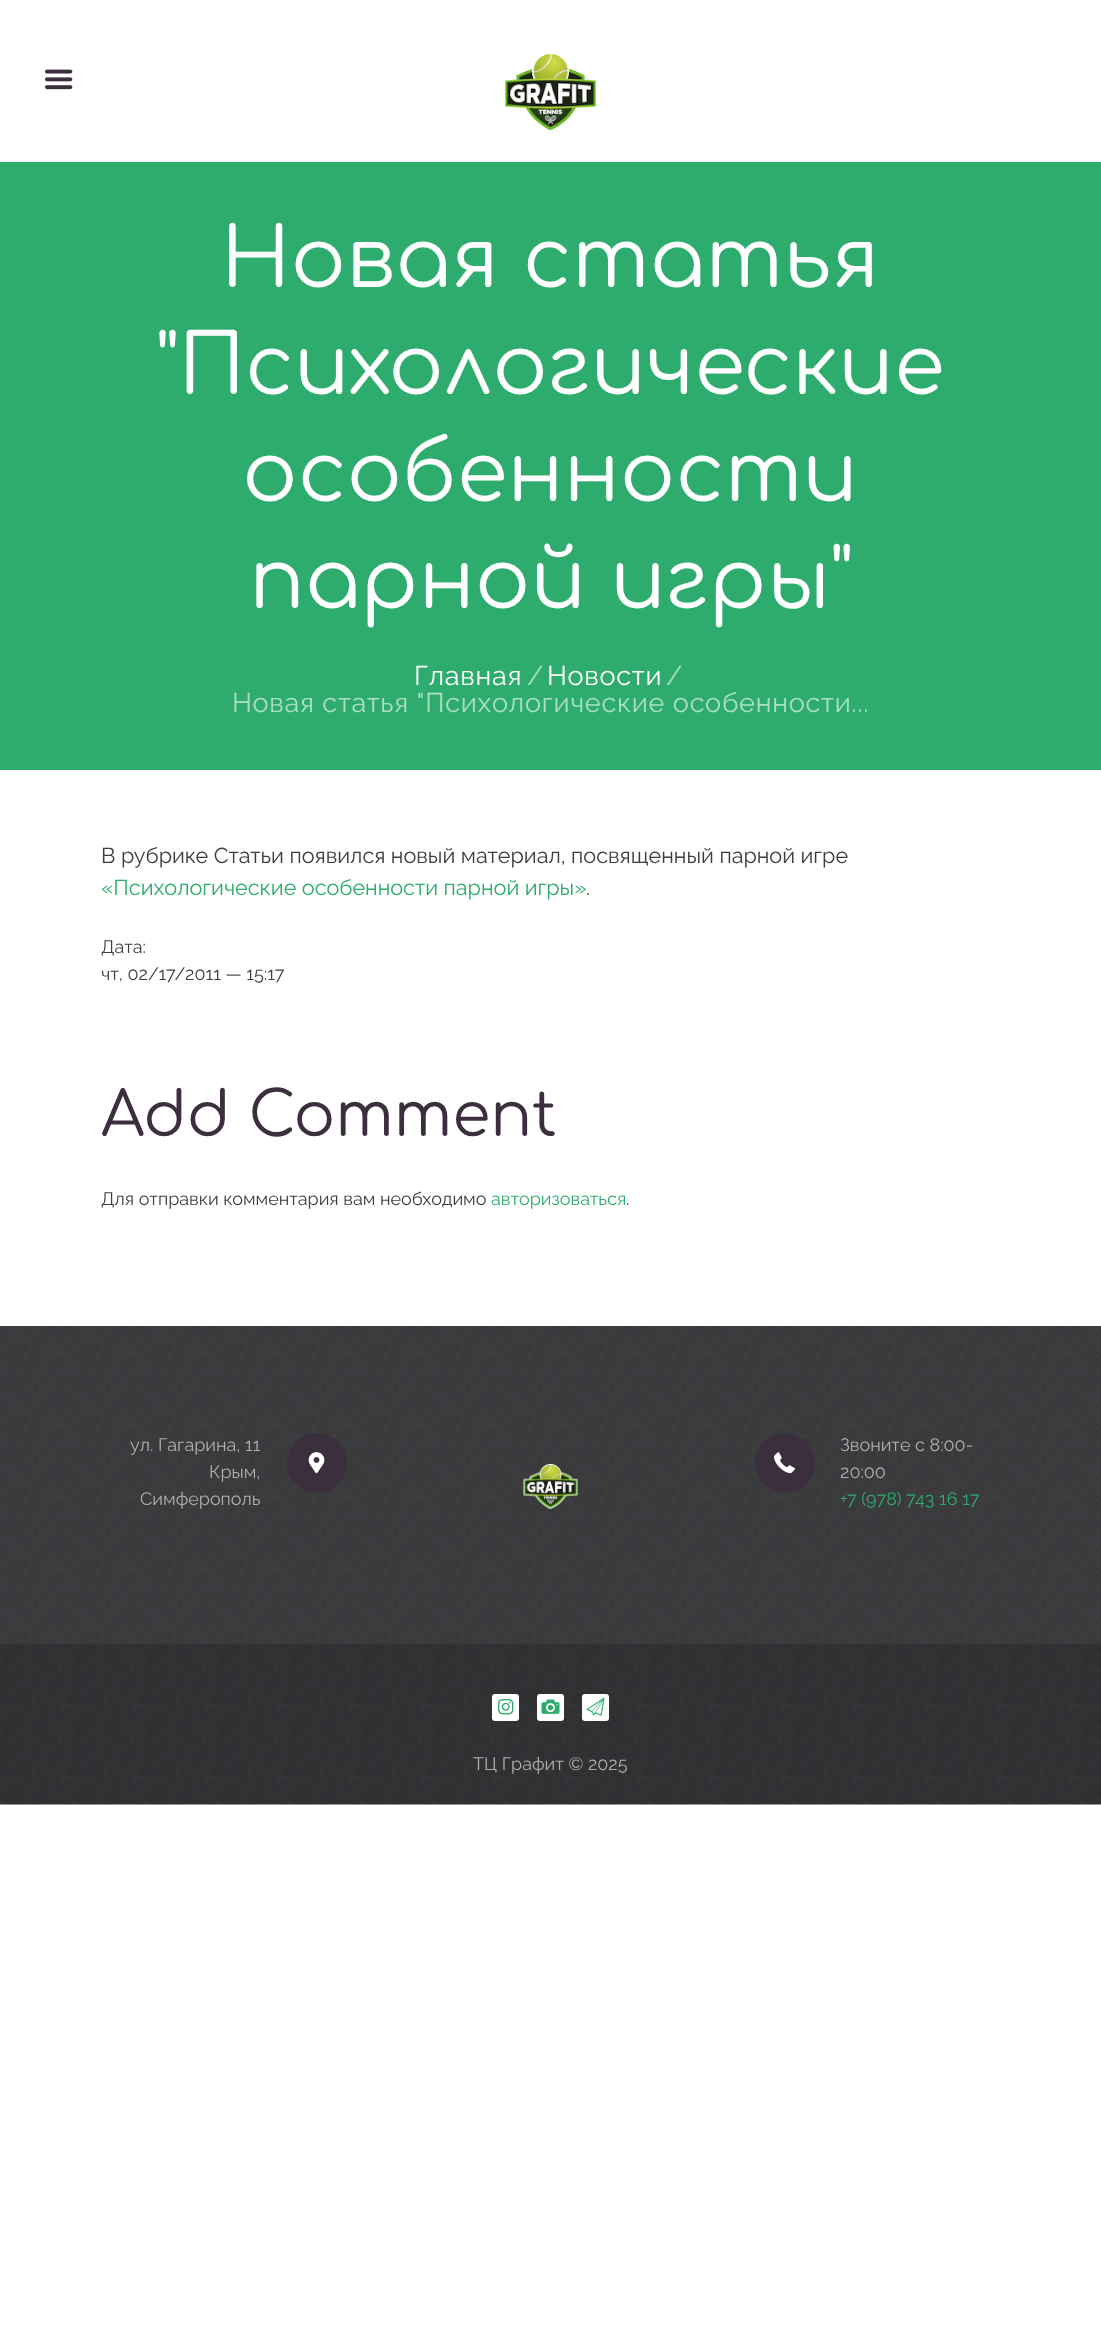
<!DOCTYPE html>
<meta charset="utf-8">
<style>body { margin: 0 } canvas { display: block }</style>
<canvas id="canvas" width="1101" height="2333"></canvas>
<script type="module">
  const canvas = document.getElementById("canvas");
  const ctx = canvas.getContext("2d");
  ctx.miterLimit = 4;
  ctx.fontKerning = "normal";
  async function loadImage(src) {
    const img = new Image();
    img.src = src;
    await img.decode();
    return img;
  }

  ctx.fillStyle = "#ffffff";
  ctx.fillRect(0, 0, 1101, 2333);
  ctx.drawImage(await loadImage("img1.png"), 45, 69, 28, 21);
  ctx.drawImage(await loadImage("img2.png"), 504, 53, 93, 78);
  ctx.fillStyle = "#2eac6d";
  ctx.fillRect(0, 162, 1101, 608);
  ctx.font = "82.25px Comfortaa";
  ctx.fillStyle = "#ffffff";
  ctx.fillText("Новая статья", 221, 287);
  ctx.fillText("\"Психологические", 156, 394);
  ctx.fillText("особенности", 242, 501);
  ctx.fillText("парной игры\"", 249, 608);
  ctx.letterSpacing = "0.75px";
  ctx.font = "27px Raleway";
  ctx.fillText("Главная", 414, 685);
  ctx.letterSpacing = "0px";
  ctx.fillStyle = "#abdec5";
  ctx.fillText("/", 527, 685);
  ctx.letterSpacing = "0.75px";
  ctx.fillStyle = "#ffffff";
  ctx.fillText("Новости", 547, 685);
  ctx.letterSpacing = "0px";
  ctx.fillStyle = "#abdec5";
  ctx.fillText("/", 666, 685);
  ctx.letterSpacing = "0.75px";
  ctx.fillText("Новая статья \"Психологические особенности...", 232, 712);
  ctx.letterSpacing = "0px";
  ctx.font = "21.6px Raleway";
  ctx.fillStyle = "#3f3b3f";
  ctx.fillText("В рубрике Статьи появился новый материал, посвященный парной игре", 101, 863);
  ctx.fillStyle = "#2eac6d";
  ctx.fillText("«Психологические особенности парной игры»", 101, 895);
  ctx.fillStyle = "#3f3b3f";
  ctx.fillText(".", 586, 895);
  ctx.font = "18px Raleway";
  ctx.fillText("Дата:", 101, 953);
  ctx.fillText("чт, 02/17/2011 — 15:17", 101, 980);
  ctx.font = "61.75px Comfortaa";
  ctx.fillStyle = "#3c2f3d";
  ctx.fillText("Add Comment", 101, 1136);
  ctx.font = "18px Raleway";
  ctx.fillStyle = "#3f3b3f";
  ctx.fillText("Для отправки комментария вам необходимо", 101, 1205);
  ctx.fillStyle = "#2eac6d";
  ctx.fillText("авторизоваться", 491, 1205);
  ctx.fillStyle = "#3f3b3f";
  ctx.fillText(".", 626, 1205);
  ctx.drawImage(await loadImage("img3.png"), 0, 1326, 1101, 318);
  ctx.fillStyle = "#b1b0af";
  ctx.fillText("ул. Гагарина, 11", 130, 1451);
  ctx.fillStyle = "#3c2f3d";
  ctx.beginPath();
  ctx.arc(317, 1463, 30, 0, Math.PI * 2);
  ctx.fill();
  ctx.drawImage(await loadImage("img4.png"), 308, 1452, 17, 22);
  ctx.fillStyle = "#b1b0af";
  ctx.fillText("Крым,", 209, 1478);
  ctx.fillText("Симферополь", 140, 1505);
  ctx.drawImage(await loadImage("img5.png"), 523, 1464, 55, 45);
  ctx.fillStyle = "#3c2f3d";
  ctx.beginPath();
  ctx.arc(785, 1463, 30, 0, Math.PI * 2);
  ctx.fill();
  ctx.drawImage(await loadImage("img6.png"), 774, 1452, 21, 22);
  ctx.fillStyle = "#b1b0af";
  ctx.fillText("Звоните с 8:00-", 840, 1451);
  ctx.fillText("20:00", 840, 1478);
  ctx.fillStyle = "#2eac6d";
  ctx.fillText("+7 (978) 743 16 17", 840, 1505);
  ctx.drawImage(await loadImage("img7.png"), 0, 1644, 1101, 161);
  ctx.fillStyle = "#ffffff";
  ctx.beginPath();
  ctx.roundRect(492, 1694, 27, 27, 3);
  ctx.fill();
  ctx.drawImage(await loadImage("img8.png"), 498, 1699, 16, 16);
  ctx.beginPath();
  ctx.roundRect(537, 1694, 27, 27, 3);
  ctx.fill();
  ctx.drawImage(await loadImage("img9.png"), 541, 1699, 19, 15);
  ctx.beginPath();
  ctx.roundRect(582, 1694, 27, 27, 3);
  ctx.fill();
  ctx.drawImage(await loadImage("img10.png"), 586, 1697, 19, 19);
  ctx.fillStyle = "#b1b0af";
  ctx.fillText("ТЦ Графит © 2025", 473, 1770);
</script>
